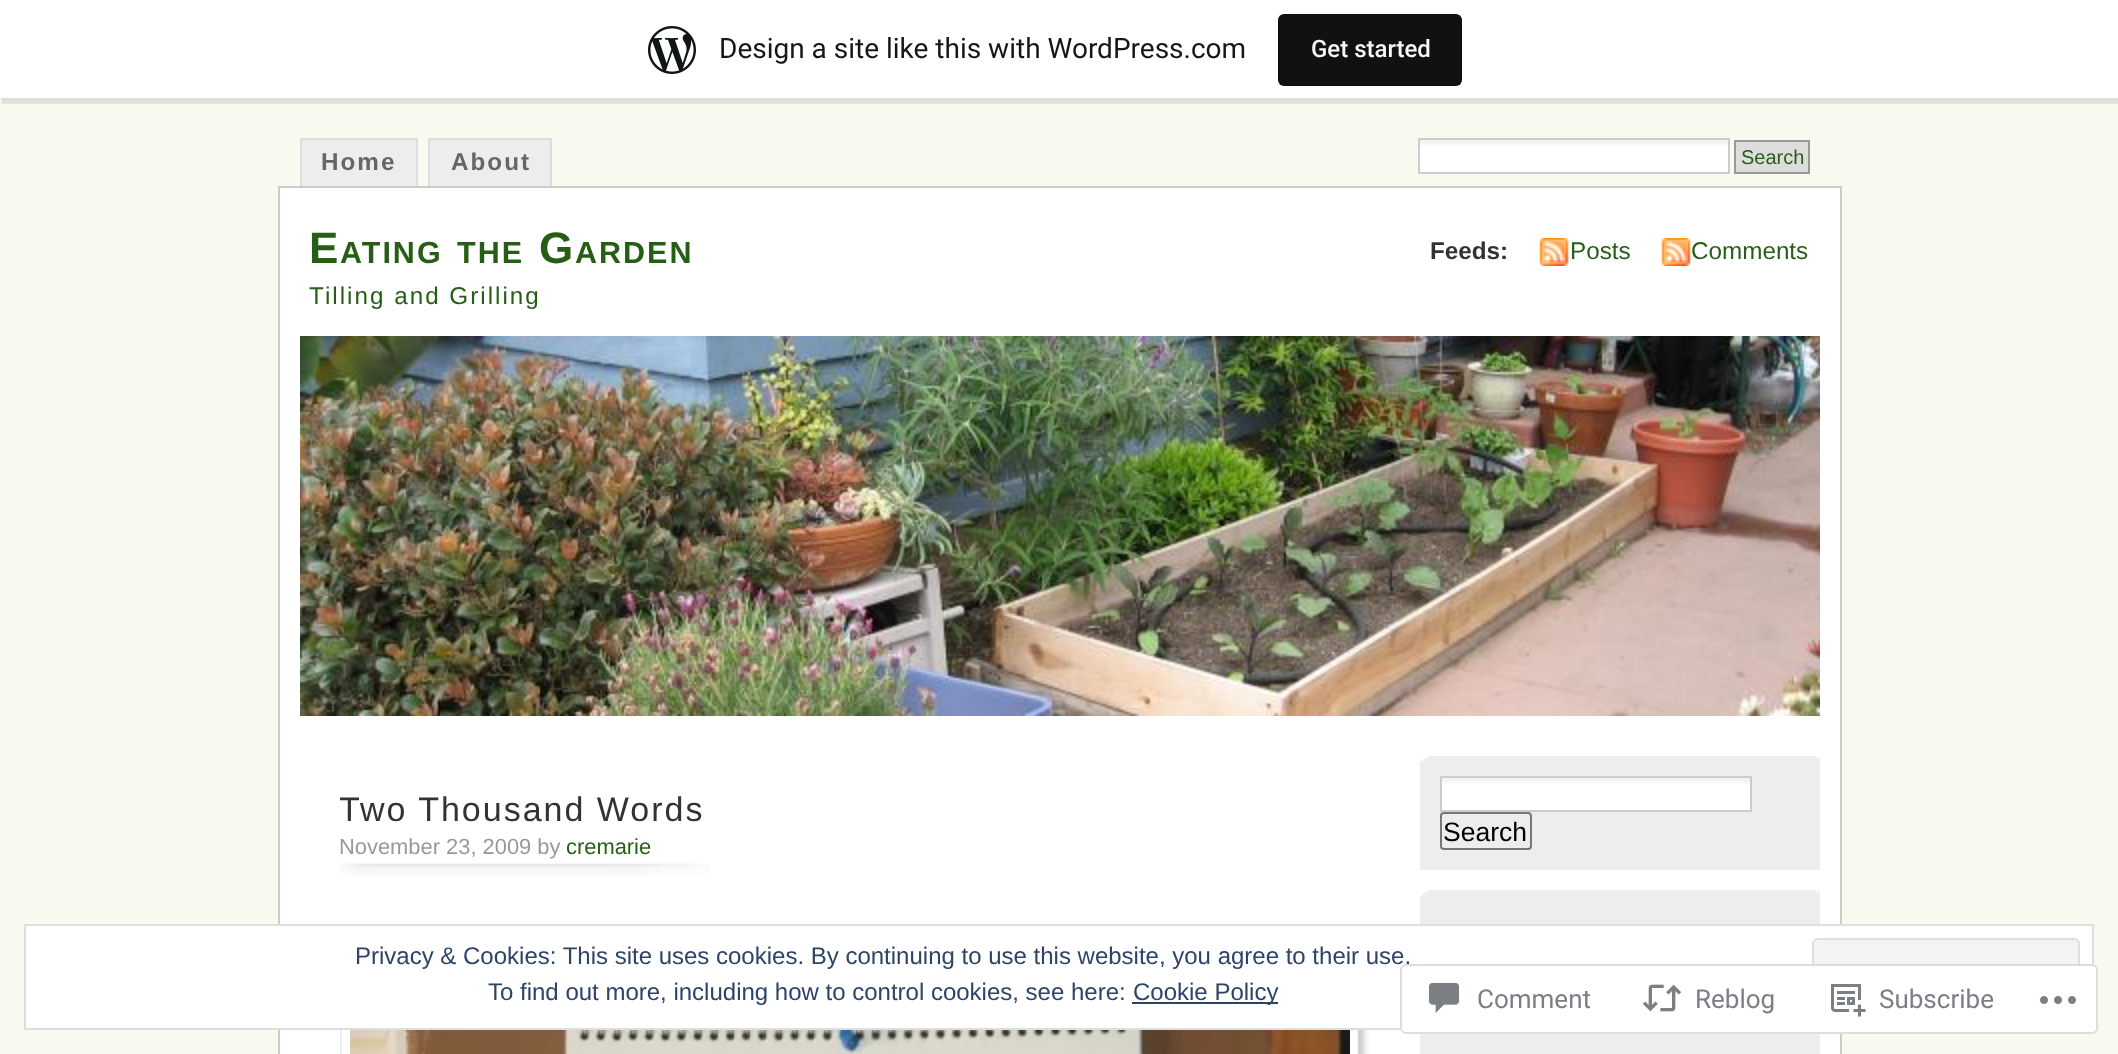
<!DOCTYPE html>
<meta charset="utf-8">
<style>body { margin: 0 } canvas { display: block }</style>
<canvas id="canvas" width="2118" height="1054"></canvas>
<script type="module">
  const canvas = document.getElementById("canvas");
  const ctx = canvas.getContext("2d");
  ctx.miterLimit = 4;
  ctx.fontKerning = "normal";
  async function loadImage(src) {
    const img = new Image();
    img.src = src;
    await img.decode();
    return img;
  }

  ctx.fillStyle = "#f9f9f0";
  ctx.fillRect(0, 0, 2118, 1054);
  ctx.fillStyle = "rgba(0, 0, 0, 0.05)";
  ctx.filter = "blur(2px)";
  ctx.beginPath();
  ctx.rect(0, 2, 2118, 98);
  ctx.fill();
  ctx.filter = "none";
  ctx.fillStyle = "rgba(0, 0, 0, 0.08)";
  ctx.beginPath();
  ctx.moveTo(2, 98);
  ctx.lineTo(2, 104);
  ctx.lineTo(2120, 104);
  ctx.lineTo(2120, 6);
  ctx.lineTo(2118, 6);
  ctx.lineTo(2118, 98);
  ctx.closePath();
  ctx.fill();
  ctx.fillStyle = "#ffffff";
  ctx.fillRect(0, 0, 2118, 98);
  ctx.drawImage(await loadImage("img1.png"), 648, 26, 48, 48);
  ctx.font = "28px Roboto";
  ctx.fillStyle = "#171717";
  ctx.fillText("Design a site like this with WordPress.com", 719, 58);
  ctx.fillStyle = "#111111";
  ctx.beginPath();
  ctx.roundRect(1278, 14, 184, 72, 6);
  ctx.fill();
  ctx.font = "500 24px Roboto";
  ctx.fillStyle = "#f6f7f7";
  ctx.fillText("Get started", 1311, 57);
  ctx.fillStyle = "#ededed";
  ctx.fillRect(302, 140, 114, 46);
  ctx.fillStyle = "#dedede";
  ctx.fillRect(300, 138, 118, 2);
  ctx.fillRect(416, 138, 2, 48);
  ctx.fillRect(300, 138, 2, 48);
  ctx.letterSpacing = "2px";
  ctx.font = "bold 24.25px Liberation Sans";
  ctx.fillStyle = "#666666";
  ctx.fillText("Home", 321, 170);
  ctx.fillStyle = "#ededed";
  ctx.fillRect(430, 140, 120, 46);
  ctx.fillStyle = "#dedede";
  ctx.fillRect(428, 138, 124, 2);
  ctx.fillRect(550, 138, 2, 48);
  ctx.fillRect(428, 138, 2, 48);
  ctx.fillStyle = "#666666";
  ctx.fillText("About", 451, 170);
  ctx.fillStyle = "#ffffff";
  ctx.fillRect(1420, 146, 308, 26);
  ctx.drawImage(await loadImage("img2.png"), 1420, 140, 308, 6);
  ctx.strokeStyle = "#cccccc";
  ctx.lineWidth = 2;
  ctx.strokeRect(1419, 139, 310, 34);
  ctx.fillStyle = "#dddddd";
  ctx.beginPath();
  ctx.rect(1735, 141, 74, 32);
  ctx.fill();
  ctx.strokeStyle = "#999999";
  ctx.stroke();
  ctx.letterSpacing = "0px";
  ctx.font = "20px Liberation Sans";
  ctx.fillStyle = "#265e15";
  ctx.fillText("Search", 1741, 164);
  ctx.fillStyle = "#ffffff";
  ctx.beginPath();
  ctx.rect(279, 187, 1562, 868);
  ctx.fill();
  ctx.strokeStyle = "#cccccc";
  ctx.stroke();
  ctx.letterSpacing = "2px";
  ctx.font = "bold 44px Liberation Sans";
  ctx.fillStyle = "#265e15";
  ctx.fillText("E", 309, 263);
  ctx.font = "bold 30.5px Liberation Sans";
  ctx.fillText("ATING", 340, 263);
  ctx.fillText("THE", 457, 263);
  ctx.font = "bold 44px Liberation Sans";
  ctx.fillText("G", 539, 263);
  ctx.font = "bold 30.5px Liberation Sans";
  ctx.fillText("ARDEN", 575, 263);
  ctx.font = "24.25px Liberation Sans";
  ctx.fillText("Tilling and Grilling", 309, 304);
  ctx.letterSpacing = "0px";
  ctx.font = "bold 24.25px Liberation Sans";
  ctx.fillStyle = "#333333";
  ctx.fillText("Feeds:", 1430, 259);
  ctx.drawImage(await loadImage("img3.png"), 1539, 238, 30, 28);
  ctx.font = "24.25px Liberation Sans";
  ctx.fillStyle = "#265e15";
  ctx.fillText("Posts", 1570, 259);
  ctx.drawImage(await loadImage("img3.png"), 1661, 238, 30, 28);
  ctx.fillText("Comments", 1691, 259);
  ctx.drawImage(await loadImage("img4.png"), 300, 336, 1520, 380);
  ctx.save();
  ctx.beginPath();
  ctx.rect(340, 756, 1040, 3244);
  ctx.clip();
  ctx.letterSpacing = "2px";
  ctx.font = "34px Liberation Sans";
  ctx.fillStyle = "#333333";
  ctx.fillText("Two Thousand Words", 339, 821);
  ctx.restore();
  ctx.drawImage(await loadImage("img5.png"), 340, 862, 370, 14);
  ctx.font = "21.9px Liberation Sans";
  ctx.fillStyle = "#999999";
  ctx.fillText("November 23, 2009 by", 339, 854);
  ctx.fillStyle = "#265e15";
  ctx.fillText("cremarie", 566, 854);
  ctx.fillStyle = "#eeeeee";
  ctx.fillRect(340, 1030, 2, 24);
  ctx.drawImage(await loadImage("img6.png"), 350, 1030, 1019, 24);
  ctx.fillStyle = "#ededed";
  ctx.fillRect(1420, 763, 400, 107);
  ctx.drawImage(await loadImage("img7.png"), 1420, 756, 400, 7);
  ctx.fillStyle = "#ffffff";
  ctx.fillRect(1442, 784, 308, 26);
  ctx.drawImage(await loadImage("img2.png"), 1442, 778, 308, 6);
  ctx.strokeRect(1441, 777, 310, 34);
  ctx.beginPath();
  ctx.roundRect(1441, 813, 90, 36, 3);
  ctx.strokeStyle = "#767676";
  ctx.stroke();
  ctx.font = "26.5px Liberation Sans";
  ctx.fillStyle = "#000000";
  ctx.fillText("Search", 1443, 841);
  ctx.fillStyle = "#ededed";
  ctx.fillRect(1420, 897, 400, 157);
  ctx.drawImage(await loadImage("img7.png"), 1420, 890, 400, 7);
  ctx.fillStyle = "#ffffff";
  ctx.beginPath();
  ctx.rect(25, 925, 2068, 104);
  ctx.fill();
  ctx.strokeStyle = "#dedede";
  ctx.stroke();
  ctx.font = "24px Liberation Sans";
  ctx.fillStyle = "#2e4467";
  ctx.fillText("Privacy & Cookies: This site uses cookies. By continuing to use this website, you agree to their use.", 355, 964);
  ctx.fillStyle = "#f3f3f3";
  ctx.beginPath();
  ctx.roundRect(1813, 939, 266, 76, 5);
  ctx.fill();
  ctx.stroke();
  ctx.fillStyle = "#2e4467";
  ctx.fillText("To find out more, including how to control cookies, see here:", 488, 1000);
  ctx.fillRect(1132, 1002, 146, 2);
  ctx.fillText("Cookie Policy", 1133, 1000);
  ctx.fillStyle = "rgba(255, 255, 255, 0.98)";
  ctx.beginPath();
  ctx.roundRect(1400, 964, 698, 70, 6);
  ctx.fill();
  ctx.beginPath();
  ctx.roundRect(1401, 965, 696, 68, 5);
  ctx.strokeStyle = "rgba(220, 220, 222, 0.98)";
  ctx.stroke();
  ctx.drawImage(await loadImage("img8.png"), 1429, 983, 30, 30);
  ctx.font = "26px Roboto";
  ctx.fillStyle = "#7b7f85";
  ctx.fillText("Comment", 1477, 1008);
  ctx.drawImage(await loadImage("img9.png"), 1642, 984, 40, 28);
  ctx.fillText("Reblog", 1695, 1008);
  ctx.drawImage(await loadImage("img10.png"), 1831, 984, 35, 33);
  ctx.fillText("Subscribe", 1879, 1008);
  ctx.drawImage(await loadImage("img11.png"), 2040, 996, 36, 8);
</script>
